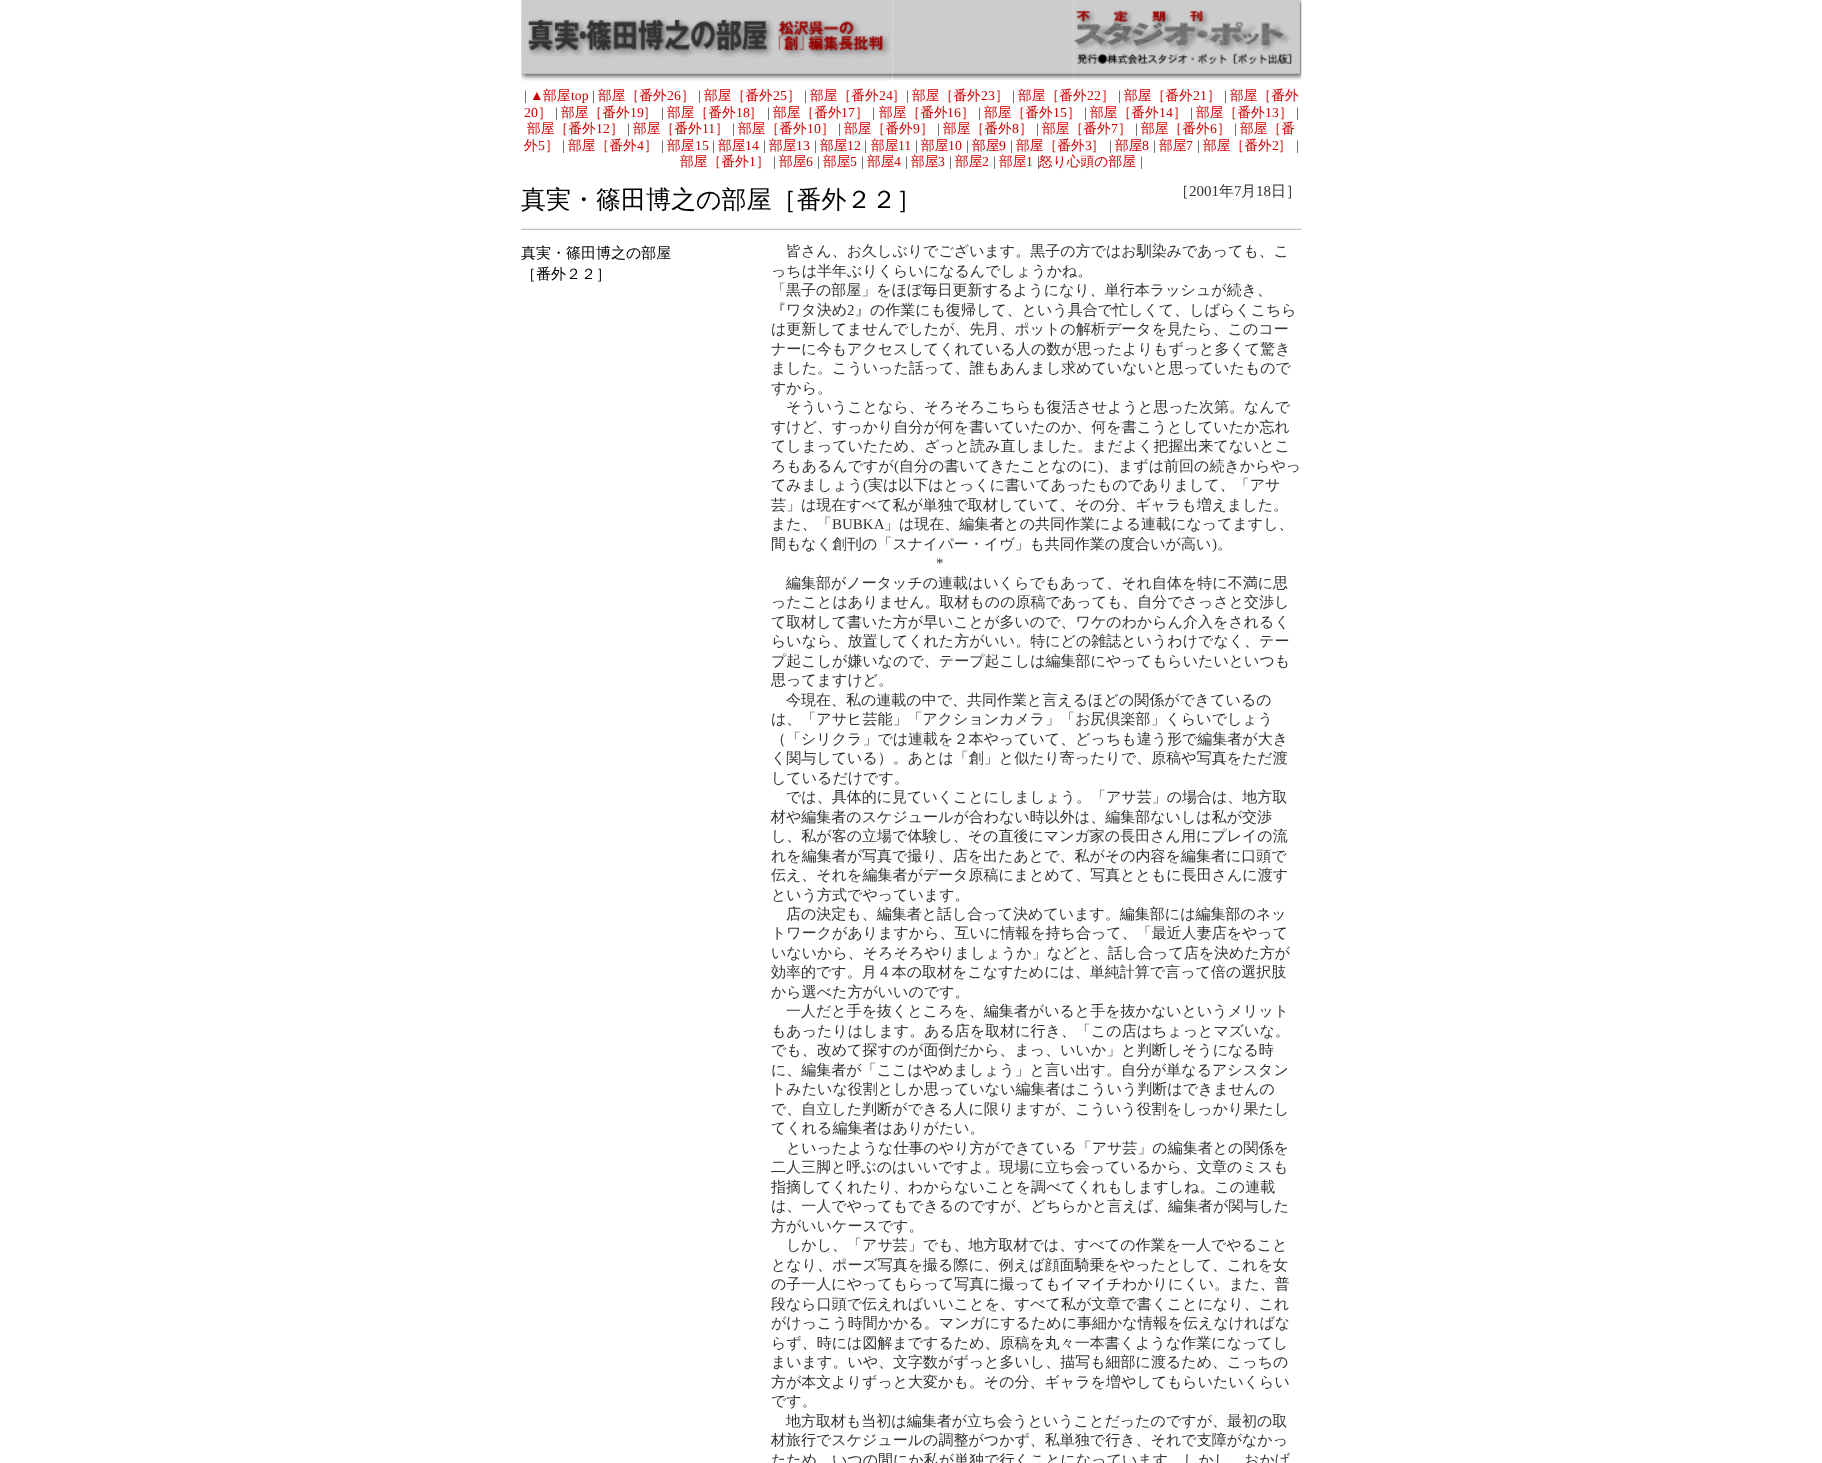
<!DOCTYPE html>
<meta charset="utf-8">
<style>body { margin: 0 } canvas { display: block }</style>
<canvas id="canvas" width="1822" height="1463"></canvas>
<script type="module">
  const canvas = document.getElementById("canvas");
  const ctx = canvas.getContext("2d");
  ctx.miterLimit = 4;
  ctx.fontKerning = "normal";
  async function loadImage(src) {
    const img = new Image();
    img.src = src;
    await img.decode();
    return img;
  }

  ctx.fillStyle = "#ffffff";
  ctx.fillRect(0, 0, 1822, 1463);
  ctx.drawImage(await loadImage("img1.png"), 521, 0, 372, 81);
  ctx.drawImage(await loadImage("img2.png"), 892, 0, 182, 80);
  ctx.drawImage(await loadImage("img3.png"), 1073, 0, 229, 80);
  ctx.font = "13.75px Liberation Serif";
  ctx.fillStyle = "#333333";
  ctx.fillText("|", 524, 100);
  ctx.fillStyle = "#cc0000";
  ctx.fillText("▲", 530, 100);
  ctx.font = "500 13.75px WenQuanYi Zen Hei";
  ctx.fillText("部屋", 543, 100);
  ctx.font = "13.75px Liberation Serif";
  ctx.fillText("top", 571, 100);
  ctx.fillStyle = "#333333";
  ctx.fillText("|", 592, 100);
  ctx.font = "500 13.75px WenQuanYi Zen Hei";
  ctx.fillStyle = "#cc0000";
  ctx.fillText("部屋［番外", 598, 100);
  ctx.font = "13.75px Liberation Serif";
  ctx.fillText("26", 667, 100);
  ctx.font = "500 13.75px WenQuanYi Zen Hei";
  ctx.fillText("］", 681, 100);
  ctx.font = "13.75px Liberation Serif";
  ctx.fillStyle = "#333333";
  ctx.fillText("|", 698, 100);
  ctx.font = "500 13.75px WenQuanYi Zen Hei";
  ctx.fillStyle = "#cc0000";
  ctx.fillText("部屋［番外", 704, 100);
  ctx.font = "13.75px Liberation Serif";
  ctx.fillText("25", 773, 100);
  ctx.font = "500 13.75px WenQuanYi Zen Hei";
  ctx.fillText("］", 787, 100);
  ctx.font = "13.75px Liberation Serif";
  ctx.fillStyle = "#333333";
  ctx.fillText("|", 804, 100);
  ctx.font = "500 13.75px WenQuanYi Zen Hei";
  ctx.fillStyle = "#cc0000";
  ctx.fillText("部屋［番外", 810, 100);
  ctx.font = "13.75px Liberation Serif";
  ctx.fillText("24", 879, 100);
  ctx.font = "500 13.75px WenQuanYi Zen Hei";
  ctx.fillText("］", 892, 100);
  ctx.font = "13.75px Liberation Serif";
  ctx.fillStyle = "#333333";
  ctx.fillText("|", 906, 100);
  ctx.font = "500 13.75px WenQuanYi Zen Hei";
  ctx.fillStyle = "#cc0000";
  ctx.fillText("部屋［番外", 912, 100);
  ctx.font = "13.75px Liberation Serif";
  ctx.fillText("23", 981, 100);
  ctx.font = "500 13.75px WenQuanYi Zen Hei";
  ctx.fillText("］", 995, 100);
  ctx.font = "13.75px Liberation Serif";
  ctx.fillStyle = "#333333";
  ctx.fillText("|", 1012, 100);
  ctx.font = "500 13.75px WenQuanYi Zen Hei";
  ctx.fillStyle = "#cc0000";
  ctx.fillText("部屋［番外", 1018, 100);
  ctx.font = "13.75px Liberation Serif";
  ctx.fillText("22", 1087, 100);
  ctx.font = "500 13.75px WenQuanYi Zen Hei";
  ctx.fillText("］", 1101, 100);
  ctx.font = "13.75px Liberation Serif";
  ctx.fillStyle = "#333333";
  ctx.fillText("|", 1118, 100);
  ctx.font = "500 13.75px WenQuanYi Zen Hei";
  ctx.fillStyle = "#cc0000";
  ctx.fillText("部屋［番外", 1124, 100);
  ctx.font = "13.75px Liberation Serif";
  ctx.fillText("21", 1193, 100);
  ctx.font = "500 13.75px WenQuanYi Zen Hei";
  ctx.fillText("］", 1207, 100);
  ctx.font = "13.75px Liberation Serif";
  ctx.fillStyle = "#333333";
  ctx.fillText("|", 1224, 100);
  ctx.font = "500 13.75px WenQuanYi Zen Hei";
  ctx.fillStyle = "#cc0000";
  ctx.fillText("部屋［番外", 1230, 100);
  ctx.font = "13.75px Liberation Serif";
  ctx.fillText("20", 524, 117);
  ctx.font = "500 13.75px WenQuanYi Zen Hei";
  ctx.fillText("］", 538, 117);
  ctx.font = "13.75px Liberation Serif";
  ctx.fillStyle = "#333333";
  ctx.fillText("|", 555, 117);
  ctx.font = "500 13.75px WenQuanYi Zen Hei";
  ctx.fillStyle = "#cc0000";
  ctx.fillText("部屋［番外", 561, 117);
  ctx.font = "13.75px Liberation Serif";
  ctx.fillText("19", 630, 117);
  ctx.font = "500 13.75px WenQuanYi Zen Hei";
  ctx.fillText("］", 643, 117);
  ctx.font = "13.75px Liberation Serif";
  ctx.fillStyle = "#333333";
  ctx.fillText("|", 661, 117);
  ctx.font = "500 13.75px WenQuanYi Zen Hei";
  ctx.fillStyle = "#cc0000";
  ctx.fillText("部屋［番外", 667, 117);
  ctx.font = "13.75px Liberation Serif";
  ctx.fillText("18", 736, 117);
  ctx.font = "500 13.75px WenQuanYi Zen Hei";
  ctx.fillText("］", 749, 117);
  ctx.font = "13.75px Liberation Serif";
  ctx.fillStyle = "#333333";
  ctx.fillText("|", 767, 117);
  ctx.font = "500 13.75px WenQuanYi Zen Hei";
  ctx.fillStyle = "#cc0000";
  ctx.fillText("部屋［番外", 773, 117);
  ctx.font = "13.75px Liberation Serif";
  ctx.fillText("17", 841, 117);
  ctx.font = "500 13.75px WenQuanYi Zen Hei";
  ctx.fillText("］", 855, 117);
  ctx.font = "13.75px Liberation Serif";
  ctx.fillStyle = "#333333";
  ctx.fillText("|", 872, 117);
  ctx.font = "500 13.75px WenQuanYi Zen Hei";
  ctx.fillStyle = "#cc0000";
  ctx.fillText("部屋［番外", 879, 117);
  ctx.font = "13.75px Liberation Serif";
  ctx.fillText("16", 947, 117);
  ctx.font = "500 13.75px WenQuanYi Zen Hei";
  ctx.fillText("］", 961, 117);
  ctx.font = "13.75px Liberation Serif";
  ctx.fillStyle = "#333333";
  ctx.fillText("|", 978, 117);
  ctx.font = "500 13.75px WenQuanYi Zen Hei";
  ctx.fillStyle = "#cc0000";
  ctx.fillText("部屋［番外", 984, 117);
  ctx.font = "13.75px Liberation Serif";
  ctx.fillText("15", 1053, 117);
  ctx.font = "500 13.75px WenQuanYi Zen Hei";
  ctx.fillText("］", 1067, 117);
  ctx.font = "13.75px Liberation Serif";
  ctx.fillStyle = "#333333";
  ctx.fillText("|", 1084, 117);
  ctx.font = "500 13.75px WenQuanYi Zen Hei";
  ctx.fillStyle = "#cc0000";
  ctx.fillText("部屋［番外", 1090, 117);
  ctx.font = "13.75px Liberation Serif";
  ctx.fillText("14", 1159, 117);
  ctx.font = "500 13.75px WenQuanYi Zen Hei";
  ctx.fillText("］", 1173, 117);
  ctx.font = "13.75px Liberation Serif";
  ctx.fillStyle = "#333333";
  ctx.fillText("|", 1190, 117);
  ctx.font = "500 13.75px WenQuanYi Zen Hei";
  ctx.fillStyle = "#cc0000";
  ctx.fillText("部屋［番外", 1196, 117);
  ctx.font = "13.75px Liberation Serif";
  ctx.fillText("13", 1265, 117);
  ctx.font = "500 13.75px WenQuanYi Zen Hei";
  ctx.fillText("］", 1279, 117);
  ctx.font = "13.75px Liberation Serif";
  ctx.fillStyle = "#333333";
  ctx.fillText("|", 1296, 117);
  ctx.font = "500 13.75px WenQuanYi Zen Hei";
  ctx.fillStyle = "#cc0000";
  ctx.fillText("部屋［番外", 527, 133);
  ctx.font = "13.75px Liberation Serif";
  ctx.fillText("12", 596, 133);
  ctx.font = "500 13.75px WenQuanYi Zen Hei";
  ctx.fillText("］", 610, 133);
  ctx.font = "13.75px Liberation Serif";
  ctx.fillStyle = "#333333";
  ctx.fillText("|", 627, 133);
  ctx.font = "500 13.75px WenQuanYi Zen Hei";
  ctx.fillStyle = "#cc0000";
  ctx.fillText("部屋［番外", 633, 133);
  ctx.font = "13.75px Liberation Serif";
  ctx.fillText("11", 702, 133);
  ctx.font = "500 13.75px WenQuanYi Zen Hei";
  ctx.fillText("］", 715, 133);
  ctx.font = "13.75px Liberation Serif";
  ctx.fillStyle = "#333333";
  ctx.fillText("|", 732, 133);
  ctx.font = "500 13.75px WenQuanYi Zen Hei";
  ctx.fillStyle = "#cc0000";
  ctx.fillText("部屋［番外", 738, 133);
  ctx.font = "13.75px Liberation Serif";
  ctx.fillText("10", 807, 133);
  ctx.font = "500 13.75px WenQuanYi Zen Hei";
  ctx.fillText("］", 821, 133);
  ctx.font = "13.75px Liberation Serif";
  ctx.fillStyle = "#333333";
  ctx.fillText("|", 838, 133);
  ctx.font = "500 13.75px WenQuanYi Zen Hei";
  ctx.fillStyle = "#cc0000";
  ctx.fillText("部屋［番外", 844, 133);
  ctx.font = "13.75px Liberation Serif";
  ctx.fillText("9", 913, 133);
  ctx.font = "500 13.75px WenQuanYi Zen Hei";
  ctx.fillText("］", 920, 133);
  ctx.font = "13.75px Liberation Serif";
  ctx.fillStyle = "#333333";
  ctx.fillText("|", 937, 133);
  ctx.font = "500 13.75px WenQuanYi Zen Hei";
  ctx.fillStyle = "#cc0000";
  ctx.fillText("部屋［番外", 943, 133);
  ctx.font = "13.75px Liberation Serif";
  ctx.fillText("8", 1012, 133);
  ctx.font = "500 13.75px WenQuanYi Zen Hei";
  ctx.fillText("］", 1019, 133);
  ctx.font = "13.75px Liberation Serif";
  ctx.fillStyle = "#333333";
  ctx.fillText("|", 1036, 133);
  ctx.font = "500 13.75px WenQuanYi Zen Hei";
  ctx.fillStyle = "#cc0000";
  ctx.fillText("部屋［番外", 1042, 133);
  ctx.font = "13.75px Liberation Serif";
  ctx.fillText("7", 1111, 133);
  ctx.font = "500 13.75px WenQuanYi Zen Hei";
  ctx.fillText("］", 1118, 133);
  ctx.font = "13.75px Liberation Serif";
  ctx.fillStyle = "#333333";
  ctx.fillText("|", 1135, 133);
  ctx.font = "500 13.75px WenQuanYi Zen Hei";
  ctx.fillStyle = "#cc0000";
  ctx.fillText("部屋［番外", 1141, 133);
  ctx.font = "13.75px Liberation Serif";
  ctx.fillText("6", 1210, 133);
  ctx.font = "500 13.75px WenQuanYi Zen Hei";
  ctx.fillText("］", 1217, 133);
  ctx.font = "13.75px Liberation Serif";
  ctx.fillStyle = "#333333";
  ctx.fillText("|", 1234, 133);
  ctx.font = "500 13.75px WenQuanYi Zen Hei";
  ctx.fillStyle = "#cc0000";
  ctx.fillText("部屋［番", 1240, 133);
  ctx.fillText("外", 524, 150);
  ctx.font = "13.75px Liberation Serif";
  ctx.fillText("5", 538, 150);
  ctx.font = "500 13.75px WenQuanYi Zen Hei";
  ctx.fillText("］", 545, 150);
  ctx.font = "13.75px Liberation Serif";
  ctx.fillStyle = "#333333";
  ctx.fillText("|", 562, 150);
  ctx.font = "500 13.75px WenQuanYi Zen Hei";
  ctx.fillStyle = "#cc0000";
  ctx.fillText("部屋［番外", 568, 150);
  ctx.font = "13.75px Liberation Serif";
  ctx.fillText("4", 637, 150);
  ctx.font = "500 13.75px WenQuanYi Zen Hei";
  ctx.fillText("］", 644, 150);
  ctx.font = "13.75px Liberation Serif";
  ctx.fillStyle = "#333333";
  ctx.fillText("|", 661, 150);
  ctx.font = "500 13.75px WenQuanYi Zen Hei";
  ctx.fillStyle = "#cc0000";
  ctx.fillText("部屋", 667, 150);
  ctx.font = "13.75px Liberation Serif";
  ctx.fillText("15", 695, 150);
  ctx.fillStyle = "#333333";
  ctx.fillText("|", 712, 150);
  ctx.font = "500 13.75px WenQuanYi Zen Hei";
  ctx.fillStyle = "#cc0000";
  ctx.fillText("部屋", 718, 150);
  ctx.font = "13.75px Liberation Serif";
  ctx.fillText("14", 745, 150);
  ctx.fillStyle = "#333333";
  ctx.fillText("|", 763, 150);
  ctx.font = "500 13.75px WenQuanYi Zen Hei";
  ctx.fillStyle = "#cc0000";
  ctx.fillText("部屋", 769, 150);
  ctx.font = "13.75px Liberation Serif";
  ctx.fillText("13", 796, 150);
  ctx.fillStyle = "#333333";
  ctx.fillText("|", 814, 150);
  ctx.font = "500 13.75px WenQuanYi Zen Hei";
  ctx.fillStyle = "#cc0000";
  ctx.fillText("部屋", 820, 150);
  ctx.font = "13.75px Liberation Serif";
  ctx.fillText("12", 847, 150);
  ctx.fillStyle = "#333333";
  ctx.fillText("|", 864, 150);
  ctx.font = "500 13.75px WenQuanYi Zen Hei";
  ctx.fillStyle = "#cc0000";
  ctx.fillText("部屋", 871, 150);
  ctx.font = "13.75px Liberation Serif";
  ctx.fillText("11", 898, 150);
  ctx.fillStyle = "#333333";
  ctx.fillText("|", 915, 150);
  ctx.font = "500 13.75px WenQuanYi Zen Hei";
  ctx.fillStyle = "#cc0000";
  ctx.fillText("部屋", 921, 150);
  ctx.font = "13.75px Liberation Serif";
  ctx.fillText("10", 948, 150);
  ctx.fillStyle = "#333333";
  ctx.fillText("|", 966, 150);
  ctx.font = "500 13.75px WenQuanYi Zen Hei";
  ctx.fillStyle = "#cc0000";
  ctx.fillText("部屋", 972, 150);
  ctx.font = "13.75px Liberation Serif";
  ctx.fillText("9", 999, 150);
  ctx.fillStyle = "#333333";
  ctx.fillText("|", 1010, 150);
  ctx.font = "500 13.75px WenQuanYi Zen Hei";
  ctx.fillStyle = "#cc0000";
  ctx.fillText("部屋［番外", 1016, 150);
  ctx.font = "13.75px Liberation Serif";
  ctx.fillText("3", 1085, 150);
  ctx.font = "500 13.75px WenQuanYi Zen Hei";
  ctx.fillText("］", 1091, 150);
  ctx.font = "13.75px Liberation Serif";
  ctx.fillStyle = "#333333";
  ctx.fillText("|", 1109, 150);
  ctx.font = "500 13.75px WenQuanYi Zen Hei";
  ctx.fillStyle = "#cc0000";
  ctx.fillText("部屋", 1115, 150);
  ctx.font = "13.75px Liberation Serif";
  ctx.fillText("8", 1142, 150);
  ctx.fillStyle = "#333333";
  ctx.fillText("|", 1153, 150);
  ctx.font = "500 13.75px WenQuanYi Zen Hei";
  ctx.fillStyle = "#cc0000";
  ctx.fillText("部屋", 1159, 150);
  ctx.font = "13.75px Liberation Serif";
  ctx.fillText("7", 1186, 150);
  ctx.fillStyle = "#333333";
  ctx.fillText("|", 1197, 150);
  ctx.font = "500 13.75px WenQuanYi Zen Hei";
  ctx.fillStyle = "#cc0000";
  ctx.fillText("部屋［番外", 1203, 150);
  ctx.font = "13.75px Liberation Serif";
  ctx.fillText("2", 1272, 150);
  ctx.font = "500 13.75px WenQuanYi Zen Hei";
  ctx.fillText("］", 1278, 150);
  ctx.font = "13.75px Liberation Serif";
  ctx.fillStyle = "#333333";
  ctx.fillText("|", 1296, 150);
  ctx.font = "500 13.75px WenQuanYi Zen Hei";
  ctx.fillStyle = "#cc0000";
  ctx.fillText("部屋［番外", 680, 166);
  ctx.font = "13.75px Liberation Serif";
  ctx.fillText("1", 749, 166);
  ctx.font = "500 13.75px WenQuanYi Zen Hei";
  ctx.fillText("］", 756, 166);
  ctx.font = "13.75px Liberation Serif";
  ctx.fillStyle = "#333333";
  ctx.fillText("|", 773, 166);
  ctx.font = "500 13.75px WenQuanYi Zen Hei";
  ctx.fillStyle = "#cc0000";
  ctx.fillText("部屋", 779, 166);
  ctx.font = "13.75px Liberation Serif";
  ctx.fillText("6", 806, 166);
  ctx.fillStyle = "#333333";
  ctx.fillText("|", 817, 166);
  ctx.font = "500 13.75px WenQuanYi Zen Hei";
  ctx.fillStyle = "#cc0000";
  ctx.fillText("部屋", 823, 166);
  ctx.font = "13.75px Liberation Serif";
  ctx.fillText("5", 850, 166);
  ctx.fillStyle = "#333333";
  ctx.fillText("|", 861, 166);
  ctx.font = "500 13.75px WenQuanYi Zen Hei";
  ctx.fillStyle = "#cc0000";
  ctx.fillText("部屋", 867, 166);
  ctx.font = "13.75px Liberation Serif";
  ctx.fillText("4", 894, 166);
  ctx.fillStyle = "#333333";
  ctx.fillText("|", 905, 166);
  ctx.font = "500 13.75px WenQuanYi Zen Hei";
  ctx.fillStyle = "#cc0000";
  ctx.fillText("部屋", 911, 166);
  ctx.font = "13.75px Liberation Serif";
  ctx.fillText("3", 938, 166);
  ctx.fillStyle = "#333333";
  ctx.fillText("|", 949, 166);
  ctx.font = "500 13.75px WenQuanYi Zen Hei";
  ctx.fillStyle = "#cc0000";
  ctx.fillText("部屋", 955, 166);
  ctx.font = "13.75px Liberation Serif";
  ctx.fillText("2", 982, 166);
  ctx.fillStyle = "#333333";
  ctx.fillText("|", 993, 166);
  ctx.font = "500 13.75px WenQuanYi Zen Hei";
  ctx.fillStyle = "#cc0000";
  ctx.fillText("部屋", 999, 166);
  ctx.font = "13.75px Liberation Serif";
  ctx.fillText("1", 1026, 166);
  ctx.fillStyle = "#333333";
  ctx.fillText("|", 1037, 166);
  ctx.font = "500 13.75px WenQuanYi Zen Hei";
  ctx.fillStyle = "#cc0000";
  ctx.fillText("怒り心頭の部屋", 1039, 166);
  ctx.font = "13.75px Liberation Serif";
  ctx.fillStyle = "#333333";
  ctx.fillText("|", 1140, 166);
  ctx.font = "500 25px WenQuanYi Zen Hei";
  ctx.fillStyle = "#000000";
  ctx.fillText("真実・篠田博之の部屋［番外２２］", 521, 208);
  ctx.font = "500 15px WenQuanYi Zen Hei";
  ctx.fillStyle = "#333333";
  ctx.fillText("［", 1174, 196);
  ctx.font = "15px Liberation Serif";
  ctx.fillText("2001", 1189, 196);
  ctx.font = "500 15px WenQuanYi Zen Hei";
  ctx.fillText("年", 1219, 196);
  ctx.font = "15px Liberation Serif";
  ctx.fillText("7", 1234, 196);
  ctx.font = "500 15px WenQuanYi Zen Hei";
  ctx.fillText("月", 1241, 196);
  ctx.font = "15px Liberation Serif";
  ctx.fillText("18", 1256, 196);
  ctx.font = "500 15px WenQuanYi Zen Hei";
  ctx.fillText("日］", 1271, 196);
  ctx.drawImage(await loadImage("img4.png"), 521, 228, 251, 2);
  ctx.drawImage(await loadImage("img5.png"), 771, 228, 531, 2);
  ctx.fillStyle = "#000000";
  ctx.fillText("真実・篠田博之の部屋", 521, 258);
  ctx.fillText("［番外２２］", 521, 279);
  ctx.fillStyle = "#333333";
  ctx.fillText("皆さん、お久しぶりでございます。黒子の方ではお馴染みであっても、こ", 786, 256);
  ctx.fillText("っちは半年ぶりくらいになるんでしょうかね。", 771, 276);
  ctx.fillText("「黒子の部屋」をほぼ毎日更新するようになり、単行本ラッシュが続き、", 771, 295);
  ctx.fillText("『ワタ決め", 771, 315);
  ctx.font = "15px Liberation Serif";
  ctx.fillText("2", 847, 315);
  ctx.font = "500 15px WenQuanYi Zen Hei";
  ctx.fillText("』の作業にも復帰して、という具合で忙しくて、しばらくこちら", 855, 315);
  ctx.fillText("は更新してませんでしたが、先月、ポットの解析データを見たら、このコー", 771, 334);
  ctx.fillText("ナーに今もアクセスしてくれている人の数が思ったよりもずっと多くて驚き", 771, 354);
  ctx.fillText("ました。こういった話って、誰もあんまし求めていないと思っていたもので", 771, 373);
  ctx.fillText("すから。", 771, 393);
  ctx.fillText("そういうことなら、そろそろこちらも復活させようと思った次第。なんで", 786, 412);
  ctx.fillText("すけど、すっかり自分が何を書いていたのか、何を書こうとしていたか忘れ", 771, 432);
  ctx.fillText("てしまっていたため、ざっと読み直しました。まだよく把握出来てないとこ", 771, 451);
  ctx.fillText("ろもあるんですが", 771, 471);
  ctx.font = "15px Liberation Serif";
  ctx.fillText("(", 894, 471);
  ctx.font = "500 15px WenQuanYi Zen Hei";
  ctx.fillText("自分の書いてきたことなのに", 899, 471);
  ctx.font = "15px Liberation Serif";
  ctx.fillText(")", 1098, 471);
  ctx.font = "500 15px WenQuanYi Zen Hei";
  ctx.fillText("、まずは前回の続きからやっ", 1103, 471);
  ctx.fillText("てみましょう", 771, 490);
  ctx.font = "15px Liberation Serif";
  ctx.fillText("(", 863, 490);
  ctx.font = "500 15px WenQuanYi Zen Hei";
  ctx.fillText("実は以下はとっくに書いてあったものでありまして、「アサ", 868, 490);
  ctx.fillText("芸」は現在すべて私が単独で取材していて、その分、ギャラも増えました。", 771, 510);
  ctx.fillText("また、「", 771, 529);
  ctx.font = "15px Liberation Serif";
  ctx.fillText("BUBKA", 832, 529);
  ctx.font = "500 15px WenQuanYi Zen Hei";
  ctx.fillText("」は現在、編集者との共同作業による連載になってますし、", 884, 529);
  ctx.fillText("間もなく創刊の「スナイパー・イヴ」も共同作業の度合いが高い", 771, 549);
  ctx.font = "15px Liberation Serif";
  ctx.fillText(")", 1212, 549);
  ctx.font = "500 15px WenQuanYi Zen Hei";
  ctx.fillText("。", 1217, 549);
  ctx.font = "15px Liberation Serif";
  ctx.fillText("*", 936, 568);
  ctx.font = "500 15px WenQuanYi Zen Hei";
  ctx.fillText("編集部がノータッチの連載はいくらでもあって、それ自体を特に不満に思", 786, 588);
  ctx.fillText("ったことはありません。取材ものの原稿であっても、自分でさっさと交渉し", 771, 607);
  ctx.fillText("て取材して書いた方が早いことが多いので、ワケのわからん介入をされるく", 771, 627);
  ctx.fillText("らいなら、放置してくれた方がいい。特にどの雑誌というわけでなく、テー", 771, 646);
  ctx.fillText("プ起こしが嫌いなので、テープ起こしは編集部にやってもらいたいといつも", 771, 666);
  ctx.fillText("思ってますけど。", 771, 685);
  ctx.fillText("今現在、私の連載の中で、共同作業と言えるほどの関係ができているの", 786, 705);
  ctx.fillText("は、「アサヒ芸能」「アクションカメラ」「お尻倶楽部」くらいでしょう", 771, 724);
  ctx.fillText("（「シリクラ」では連載を２本やっていて、どっちも違う形で編集者が大き", 771, 744);
  ctx.fillText("く関与している）。あとは「創」と似たり寄ったりで、原稿や写真をただ渡", 771, 763);
  ctx.fillText("しているだけです。", 771, 783);
  ctx.fillText("では、具体的に見ていくことにしましょう。「アサ芸」の場合は、地方取", 786, 802);
  ctx.fillText("材や編集者のスケジュールが合わない時以外は、編集部ないしは私が交渉", 771, 822);
  ctx.fillText("し、私が客の立場で体験し、その直後にマンガ家の長田さん用にプレイの流", 771, 841);
  ctx.fillText("れを編集者が写真で撮り、店を出たあとで、私がその内容を編集者に口頭で", 771, 861);
  ctx.fillText("伝え、それを編集者がデータ原稿にまとめて、写真とともに長田さんに渡す", 771, 880);
  ctx.fillText("という方式でやっています。", 771, 900);
  ctx.fillText("店の決定も、編集者と話し合って決めています。編集部には編集部のネッ", 786, 919);
  ctx.fillText("トワークがありますから、互いに情報を持ち合って、「最近人妻店をやって", 771, 938);
  ctx.fillText("いないから、そろそろやりましょうか」などと、話し合って店を決めた方が", 771, 958);
  ctx.fillText("効率的です。月４本の取材をこなすためには、単純計算で言って倍の選択肢", 771, 977);
  ctx.fillText("から選べた方がいいのです。", 771, 997);
  ctx.fillText("一人だと手を抜くところを、編集者がいると手を抜かないというメリット", 786, 1016);
  ctx.fillText("もあったりはします。ある店を取材に行き、「この店はちょっとマズいな。", 771, 1036);
  ctx.fillText("でも、改めて探すのが面倒だから、まっ、いいか」と判断しそうになる時", 771, 1055);
  ctx.fillText("に、編集者が「ここはやめましょう」と言い出す。自分が単なるアシスタン", 771, 1075);
  ctx.fillText("トみたいな役割としか思っていない編集者はこういう判断はできませんの", 771, 1094);
  ctx.fillText("で、自立した判断ができる人に限りますが、こういう役割をしっかり果たし", 771, 1114);
  ctx.fillText("てくれる編集者はありがたい。", 771, 1133);
  ctx.fillText("といったような仕事のやり方ができている「アサ芸」の編集者との関係を", 786, 1153);
  ctx.fillText("二人三脚と呼ぶのはいいですよ。現場に立ち会っているから、文章のミスも", 771, 1172);
  ctx.fillText("指摘してくれたり、わからないことを調べてくれもしますしね。この連載", 771, 1192);
  ctx.fillText("は、一人でやってもできるのですが、どちらかと言えば、編集者が関与した", 771, 1211);
  ctx.fillText("方がいいケースです。", 771, 1231);
  ctx.fillText("しかし、「アサ芸」でも、地方取材では、すべての作業を一人でやること", 786, 1250);
  ctx.fillText("となり、ポーズ写真を撮る際に、例えば顔面騎乗をやったとして、これを女", 771, 1270);
  ctx.fillText("の子一人にやってもらって写真に撮ってもイマイチわかりにくい。また、普", 771, 1289);
  ctx.fillText("段なら口頭で伝えればいいことを、すべて私が文章で書くことになり、これ", 771, 1309);
  ctx.fillText("がけっこう時間かかる。マンガにするために事細かな情報を伝えなければな", 771, 1328);
  ctx.fillText("らず、時には図解までするため、原稿を丸々一本書くような作業になってし", 771, 1348);
  ctx.fillText("まいます。いや、文字数がずっと多いし、描写も細部に渡るため、こっちの", 771, 1367);
  ctx.fillText("方が本文よりずっと大変かも。その分、ギャラを増やしてもらいたいくらい", 771, 1387);
  ctx.fillText("です。", 771, 1406);
  ctx.fillText("地方取材も当初は編集者が立ち会うということだったのですが、最初の取", 786, 1426);
  ctx.fillText("材旅行でスケジュールの調整がつかず、私単独で行き、それで支障がなかっ", 771, 1445);
  ctx.fillText("たため、いつの間にか私が単独で行くことになっています。しかし、おかげ", 771, 1465);
</script>
